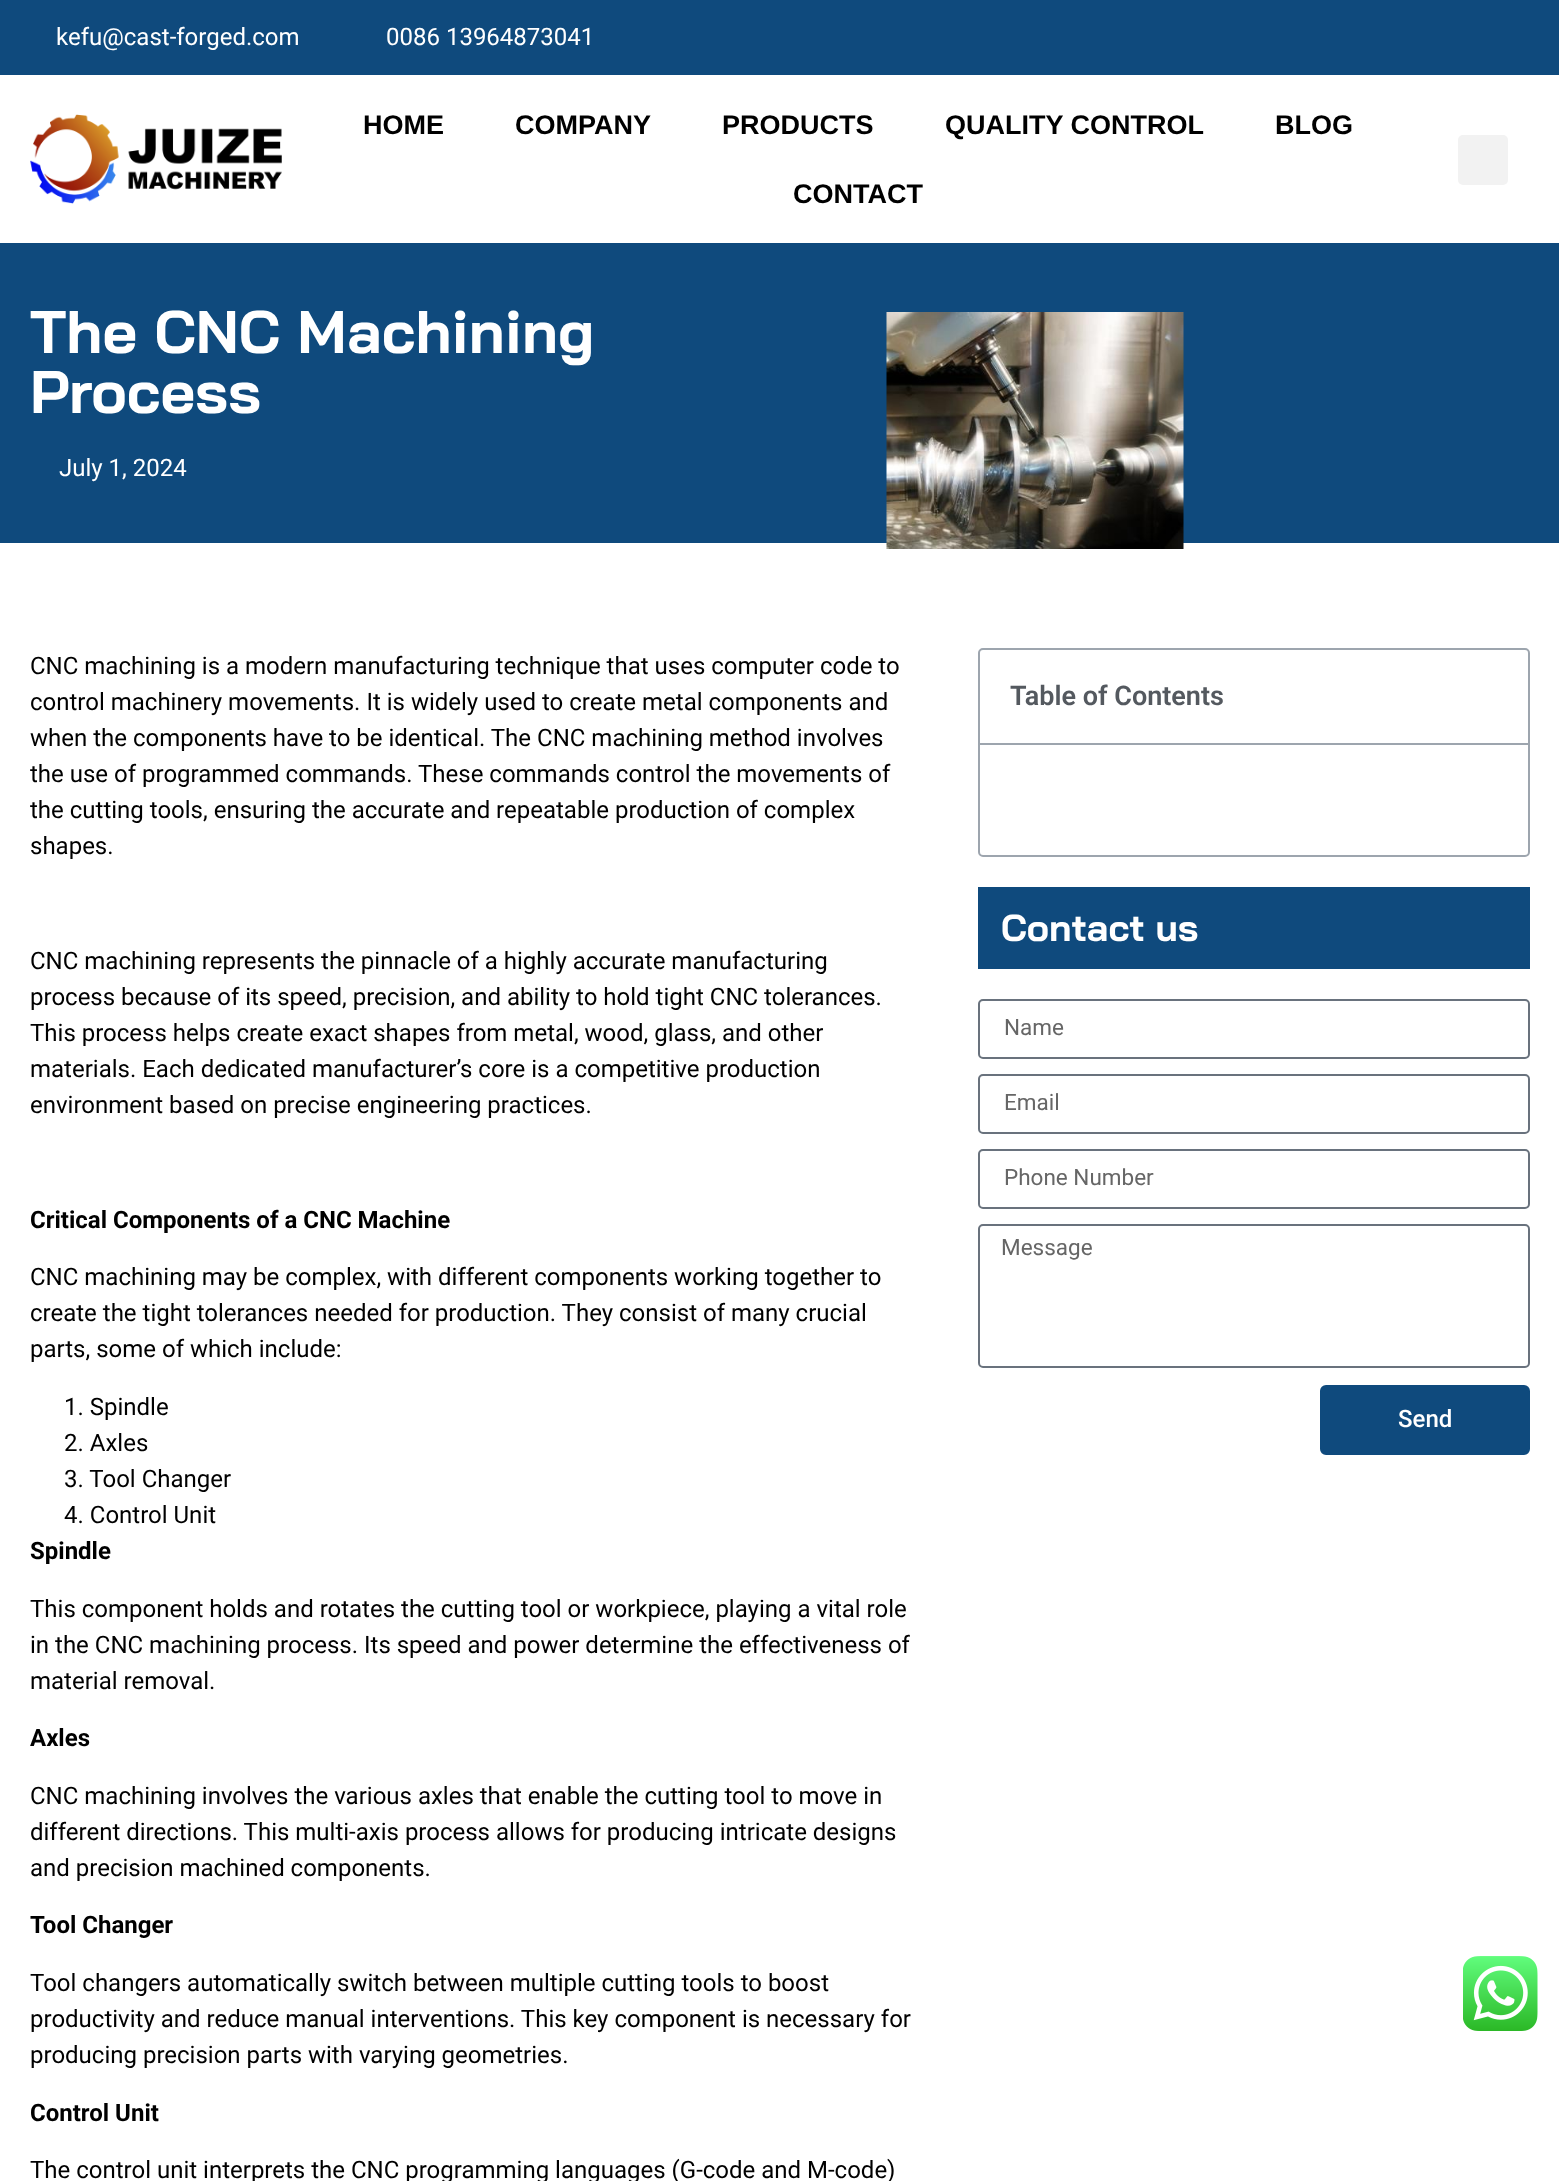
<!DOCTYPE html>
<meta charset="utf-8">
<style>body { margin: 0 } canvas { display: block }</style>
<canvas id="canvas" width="1559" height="2181"></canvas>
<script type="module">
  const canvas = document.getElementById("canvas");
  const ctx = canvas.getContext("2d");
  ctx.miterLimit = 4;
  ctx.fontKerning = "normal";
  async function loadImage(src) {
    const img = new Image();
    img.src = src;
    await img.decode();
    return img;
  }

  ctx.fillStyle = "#ffffff";
  ctx.fillRect(0, 0, 1559, 2181);
  ctx.fillStyle = "#0f4a7d";
  ctx.fillRect(0, 0, 1559, 75);
  ctx.font = "24px Roboto";
  ctx.fillStyle = "#ffffff";
  ctx.fillText("kefu@cast-forged.com", 56, 45);
  ctx.fillText("0086 13964873041", 386, 45);
  ctx.drawImage(await loadImage("img1.png"), 30, 114, 252, 90);
  ctx.font = "bold 27px Liberation Sans";
  ctx.fillStyle = "#000000";
  ctx.fillText("HOME", 363, 134);
  ctx.fillText("COMPANY", 515, 134);
  ctx.fillText("PRODUCTS", 722, 134);
  ctx.fillText("QUALITY CONTROL", 945, 134);
  ctx.fillText("BLOG", 1275, 134);
  ctx.fillText("CONTACT", 793, 203);
  ctx.fillStyle = "#f2f2f2";
  ctx.beginPath();
  ctx.roundRect(1458, 135, 50, 50, 5);
  ctx.fill();
  ctx.fillStyle = "#0f4a7d";
  ctx.fillRect(0, 243, 1559, 300);
  ctx.font = "bold 60px Bai Jamjuree";
  ctx.fillStyle = "#ffffff";
  ctx.fillText("The CNC Machining", 30, 353);
  ctx.fillText("Process", 30, 413);
  ctx.font = "24px Roboto";
  ctx.fillText("July 1, 2024", 59, 476);
  ctx.drawImage(await loadImage("img2.png"), 886, 312, 298, 237);
  ctx.fillStyle = "#000000";
  ctx.fillText("CNC machining is a modern manufacturing technique that uses computer code to", 30, 674);
  ctx.fillText("control machinery movements. It is widely used to create metal components and", 30, 710);
  ctx.fillText("when the components have to be identical. The CNC machining method involves", 30, 746);
  ctx.fillText("the use of programmed commands. These commands control the movements of", 30, 782);
  ctx.fillText("the cutting tools, ensuring the accurate and repeatable production of complex", 30, 818);
  ctx.fillText("shapes.", 30, 854);
  ctx.fillText("CNC machining represents the pinnacle of a highly accurate manufacturing", 30, 969);
  ctx.fillText("process because of its speed, precision, and ability to hold tight CNC tolerances.", 30, 1005);
  ctx.fillText("This process helps create exact shapes from metal, wood, glass, and other", 30, 1041);
  ctx.fillText("materials. Each dedicated manufacturer’s core is a competitive production", 30, 1077);
  ctx.fillText("environment based on precise engineering practices.", 30, 1113);
  ctx.font = "bold 24px Roboto";
  ctx.fillText("Critical Components of a CNC Machine", 30, 1228);
  ctx.font = "24px Roboto";
  ctx.fillText("CNC machining may be complex, with different components working together to", 30, 1285);
  ctx.fillText("create the tight tolerances needed for production. They consist of many crucial", 30, 1321);
  ctx.fillText("parts, some of which include:", 30, 1357);
  ctx.fillText("1. Spindle", 64, 1415);
  ctx.fillText("2. Axles", 64, 1451);
  ctx.fillText("3. Tool Changer", 64, 1487);
  ctx.fillText("4. Control Unit", 64, 1523);
  ctx.font = "bold 24px Roboto";
  ctx.fillText("Spindle", 30, 1559);
  ctx.font = "24px Roboto";
  ctx.fillText("This component holds and rotates the cutting tool or workpiece, playing a vital role", 30, 1617);
  ctx.fillText("in the CNC machining process. Its speed and power determine the effectiveness of", 30, 1653);
  ctx.fillText("material removal.", 30, 1689);
  ctx.font = "bold 24px Roboto";
  ctx.fillText("Axles", 30, 1746);
  ctx.font = "24px Roboto";
  ctx.fillText("CNC machining involves the various axles that enable the cutting tool to move in", 30, 1804);
  ctx.fillText("different directions. This multi-axis process allows for producing intricate designs", 30, 1840);
  ctx.fillText("and precision machined components.", 30, 1876);
  ctx.font = "bold 24px Roboto";
  ctx.fillText("Tool Changer", 30, 1933);
  ctx.font = "24px Roboto";
  ctx.fillText("Tool changers automatically switch between multiple cutting tools to boost", 30, 1991);
  ctx.fillText("productivity and reduce manual interventions. This key component is necessary for", 30, 2027);
  ctx.fillText("producing precision parts with varying geometries.", 30, 2063);
  ctx.font = "bold 24px Roboto";
  ctx.fillText("Control Unit", 30, 2121);
  ctx.font = "24px Roboto";
  ctx.fillText("The control unit interprets the CNC programming languages (G-code and M-code)", 30, 2178);
  ctx.beginPath();
  ctx.roundRect(979, 649, 550, 207, 4);
  ctx.strokeStyle = "#9da5ae";
  ctx.lineWidth = 2;
  ctx.stroke();
  ctx.fillStyle = "#9da5ae";
  ctx.fillRect(980, 743, 549, 2);
  ctx.font = "600 27px Roboto";
  ctx.fillStyle = "#54595f";
  ctx.fillText("Table of Contents", 1010, 705);
  ctx.fillStyle = "#0f4a7d";
  ctx.fillRect(978, 887, 552, 82);
  ctx.font = "bold 37.5px Bai Jamjuree";
  ctx.fillStyle = "#ffffff";
  ctx.fillText("Contact us", 1001, 941);
  ctx.beginPath();
  ctx.roundRect(979, 1000, 550, 58, 4);
  ctx.strokeStyle = "#69727d";
  ctx.stroke();
  ctx.font = "22.5px Roboto";
  ctx.fillStyle = "#666666";
  ctx.fillText("Name", 1004, 1035);
  ctx.beginPath();
  ctx.roundRect(979, 1075, 550, 58, 4);
  ctx.stroke();
  ctx.fillText("Email", 1004, 1110);
  ctx.beginPath();
  ctx.roundRect(979, 1150, 550, 58, 4);
  ctx.stroke();
  ctx.fillText("Phone Number", 1004, 1185);
  ctx.beginPath();
  ctx.roundRect(979, 1225, 550, 142, 4);
  ctx.stroke();
  ctx.fillText("Message", 1001, 1255);
  ctx.fillStyle = "#0f4a7d";
  ctx.beginPath();
  ctx.roundRect(1321.5, 1386.5, 207, 67, 4.5);
  ctx.fill();
  ctx.strokeStyle = "#0f4a7d";
  ctx.lineWidth = 3;
  ctx.stroke();
  ctx.font = "500 24px Roboto";
  ctx.fillStyle = "#ffffff";
  ctx.fillText("Send", 1398, 1427);
  ctx.drawImage(await loadImage("img3.png"), 1463, 1956, 75, 75);
</script>
